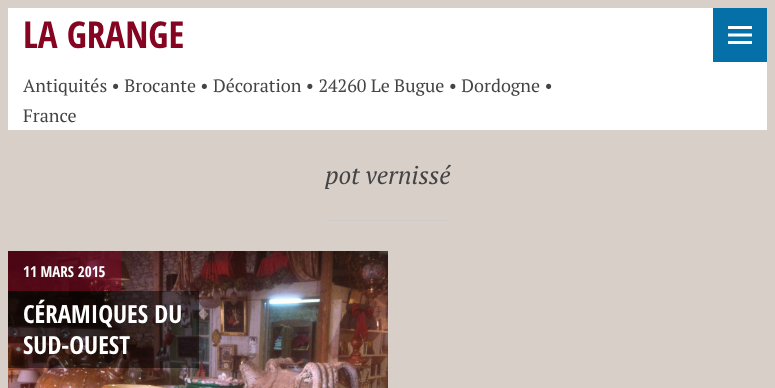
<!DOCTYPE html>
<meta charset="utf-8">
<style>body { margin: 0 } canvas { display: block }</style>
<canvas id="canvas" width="775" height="388"></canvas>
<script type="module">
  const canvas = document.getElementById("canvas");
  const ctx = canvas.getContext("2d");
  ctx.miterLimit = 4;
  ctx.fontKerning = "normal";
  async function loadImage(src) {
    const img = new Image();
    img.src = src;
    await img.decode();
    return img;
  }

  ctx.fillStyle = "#d8cfc9";
  ctx.fillRect(0, 0, 775, 388);
  ctx.fillStyle = "#ffffff";
  ctx.fillRect(8, 8, 759, 122);
  ctx.font = "bold 37px Open Sans Condensed";
  ctx.fillStyle = "#850422";
  ctx.fillText("LA GRANGE", 23, 48);
  ctx.fillStyle = "#0570a8";
  ctx.fillRect(713, 8, 54, 54);
  ctx.drawImage(await loadImage("img1.png"), 728, 26, 24, 18);
  ctx.font = "18px PT Serif";
  ctx.fillStyle = "#444444";
  ctx.fillText("Antiquités • Brocante • Décoration • 24260 Le Bugue • Dordogne •", 23, 92);
  ctx.fillText("France", 23, 122);
  ctx.font = "italic 25px PT Serif";
  ctx.fillText("pot vernissé", 325, 184);
  ctx.fillStyle = "#cccccc";
  ctx.fillRect(328, 220, 120, 1);
  ctx.drawImage(await loadImage("img2.png"), 8, 251, 380, 137);
  ctx.fillStyle = "rgba(133, 4, 34, 0.5)";
  ctx.fillRect(8, 251, 113, 40);
  ctx.font = "bold 15px Open Sans Condensed";
  ctx.fillStyle = "#ffffff";
  ctx.fillText("11 MARS 2015", 23, 277);
  ctx.fillStyle = "rgba(0, 0, 0, 0.5)";
  ctx.fillRect(8, 291, 191, 77);
  ctx.font = "bold 25px Open Sans Condensed";
  ctx.fillStyle = "#ffffff";
  ctx.fillText("CÉRAMIQUES DU", 23, 323);
  ctx.fillText("SUD-OUEST", 23, 354);
</script>
